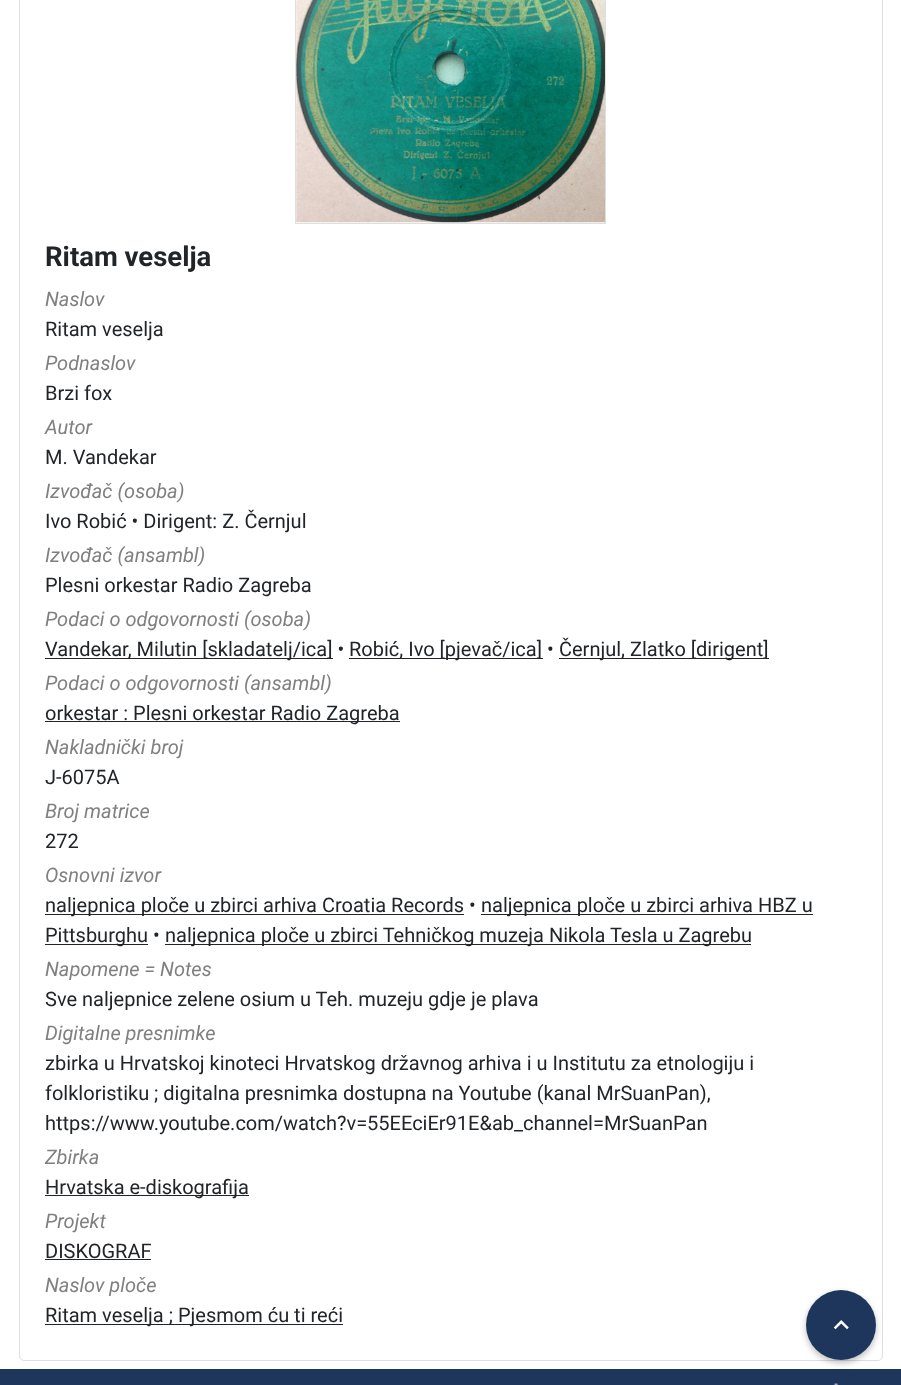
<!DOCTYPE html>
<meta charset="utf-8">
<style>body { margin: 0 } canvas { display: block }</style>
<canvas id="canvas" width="901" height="1385"></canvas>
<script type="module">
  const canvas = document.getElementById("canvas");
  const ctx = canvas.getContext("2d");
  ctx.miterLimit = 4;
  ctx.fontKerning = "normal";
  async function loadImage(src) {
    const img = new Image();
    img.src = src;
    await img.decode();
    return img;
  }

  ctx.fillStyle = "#ffffff";
  ctx.fillRect(0, 0, 901, 1385);
  ctx.beginPath();
  ctx.roundRect(19.5, -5.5, 863, 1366, 4.5);
  ctx.strokeStyle = "#dfdfdf";
  ctx.stroke();
  ctx.strokeRect(295.5, -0.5, 310, 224);
  ctx.drawImage(await loadImage("img1.png"), 296, 0, 309, 223);
  ctx.font = "bold 27.5px Roboto";
  ctx.fillStyle = "#212529";
  ctx.fillText("Ritam veselja", 45, 266);
  ctx.font = "italic 20px Roboto";
  ctx.fillStyle = "#808080";
  ctx.fillText("Naslov", 45, 306);
  ctx.font = "20px Roboto";
  ctx.fillStyle = "#212529";
  ctx.fillText("Ritam veselja", 45, 336);
  ctx.font = "italic 20px Roboto";
  ctx.fillStyle = "#808080";
  ctx.fillText("Podnaslov", 45, 370);
  ctx.font = "20px Roboto";
  ctx.fillStyle = "#212529";
  ctx.fillText("Brzi fox", 45, 400);
  ctx.font = "italic 20px Roboto";
  ctx.fillStyle = "#808080";
  ctx.fillText("Autor", 45, 434);
  ctx.font = "20px Roboto";
  ctx.fillStyle = "#212529";
  ctx.fillText("M. Vandekar", 45, 464);
  ctx.font = "italic 20px Roboto";
  ctx.fillStyle = "#808080";
  ctx.fillText("Izvođač (osoba)", 45, 498);
  ctx.font = "20px Roboto";
  ctx.fillStyle = "#212529";
  ctx.fillText("Ivo Robić • Dirigent: Z. Černjul", 45, 528);
  ctx.font = "italic 20px Roboto";
  ctx.fillStyle = "#808080";
  ctx.fillText("Izvođač (ansambl)", 45, 562);
  ctx.font = "20px Roboto";
  ctx.fillStyle = "#212529";
  ctx.fillText("Plesni orkestar Radio Zagreba", 45, 592);
  ctx.font = "italic 20px Roboto";
  ctx.fillStyle = "#808080";
  ctx.fillText("Podaci o odgovornosti (osoba)", 45, 626);
  ctx.fillStyle = "#212529";
  ctx.fillRect(45, 658, 288, 1);
  ctx.font = "20px Roboto";
  ctx.fillText("Vandekar, Milutin [skladatelj/ica] •", 45, 656);
  ctx.fillRect(349, 658, 194, 1);
  ctx.fillText("Robić, Ivo [pjevač/ica] •", 349, 656);
  ctx.fillRect(559, 658, 210, 1);
  ctx.fillText("Černjul, Zlatko [dirigent]", 559, 656);
  ctx.font = "italic 20px Roboto";
  ctx.fillStyle = "#808080";
  ctx.fillText("Podaci o odgovornosti (ansambl)", 45, 690);
  ctx.fillStyle = "#212529";
  ctx.fillRect(45, 721, 355, 1);
  ctx.font = "20px Roboto";
  ctx.fillText("orkestar : Plesni orkestar Radio Zagreba", 45, 720);
  ctx.font = "italic 20px Roboto";
  ctx.fillStyle = "#808080";
  ctx.fillText("Nakladnički broj", 45, 754);
  ctx.font = "20px Roboto";
  ctx.fillStyle = "#212529";
  ctx.fillText("J-6075A", 45, 784);
  ctx.font = "italic 20px Roboto";
  ctx.fillStyle = "#808080";
  ctx.fillText("Broj matrice", 45, 818);
  ctx.font = "20px Roboto";
  ctx.fillStyle = "#212529";
  ctx.fillText("272", 45, 848);
  ctx.font = "italic 20px Roboto";
  ctx.fillStyle = "#808080";
  ctx.fillText("Osnovni izvor", 45, 882);
  ctx.fillStyle = "#212529";
  ctx.fillRect(45, 914, 419, 1);
  ctx.font = "20px Roboto";
  ctx.fillText("naljepnica ploče u zbirci arhiva Croatia Records •", 45, 912);
  ctx.fillRect(481, 914, 332, 1);
  ctx.fillText("naljepnica ploče u zbirci arhiva HBZ u", 481, 912);
  ctx.fillRect(45, 944, 103, 1);
  ctx.fillText("Pittsburghu •", 45, 942);
  ctx.fillRect(165, 944, 586, 1);
  ctx.fillText("naljepnica ploče u zbirci Tehničkog muzeja Nikola Tesla u Zagrebu", 165, 942);
  ctx.font = "italic 20px Roboto";
  ctx.fillStyle = "#808080";
  ctx.fillText("Napomene = Notes", 45, 976);
  ctx.font = "20px Roboto";
  ctx.fillStyle = "#212529";
  ctx.fillText("Sve naljepnice zelene osium u Teh. muzeju gdje je plava", 45, 1006);
  ctx.font = "italic 20px Roboto";
  ctx.fillStyle = "#808080";
  ctx.fillText("Digitalne presnimke", 45, 1040);
  ctx.font = "20px Roboto";
  ctx.fillStyle = "#212529";
  ctx.fillText("zbirka u Hrvatskoj kinoteci Hrvatskog državnog arhiva i u Institutu za etnologiju i", 45, 1070);
  ctx.fillText("folkloristiku ; digitalna presnimka dostupna na Youtube (kanal MrSuanPan),", 45, 1100);
  ctx.fillText("https://www.youtube.com/watch?v=55EEciEr91E&ab_channel=MrSuanPan", 45, 1130);
  ctx.font = "italic 20px Roboto";
  ctx.fillStyle = "#808080";
  ctx.fillText("Zbirka", 45, 1164);
  ctx.fillStyle = "#212529";
  ctx.fillRect(45, 1195, 204, 1);
  ctx.font = "20px Roboto";
  ctx.fillText("Hrvatska e-diskografija", 45, 1194);
  ctx.font = "italic 20px Roboto";
  ctx.fillStyle = "#808080";
  ctx.fillText("Projekt", 45, 1228);
  ctx.font = "20px Roboto";
  ctx.fillStyle = "#212529";
  ctx.fillText("DISKOGRAF", 45, 1258);
  ctx.fillRect(45, 1259, 106, 1);
  ctx.font = "italic 20px Roboto";
  ctx.fillStyle = "#808080";
  ctx.fillText("Naslov ploče", 45, 1292);
  ctx.fillStyle = "#212529";
  ctx.fillRect(45, 1324, 298, 1);
  ctx.font = "20px Roboto";
  ctx.fillText("Ritam veselja ; Pjesmom ću ti reći", 45, 1322);
  ctx.fillStyle = "#1f365c";
  ctx.fillRect(0, 1369, 901, 16);
  ctx.fillStyle = "rgba(0, 0, 0, 0.26)";
  ctx.filter = "blur(3px)";
  ctx.beginPath();
  ctx.roundRect(806, 1293, 70, 70, 35);
  ctx.fill();
  ctx.filter = "none";
  ctx.fillStyle = "#1f365c";
  ctx.beginPath();
  ctx.arc(841, 1325, 35, 0, Math.PI * 2);
  ctx.fill();
  ctx.drawImage(await loadImage("img2.png"), 833, 1320, 16, 10);
  ctx.drawImage(await loadImage("img3.png"), 833, 1383, 6, 2);
</script>
